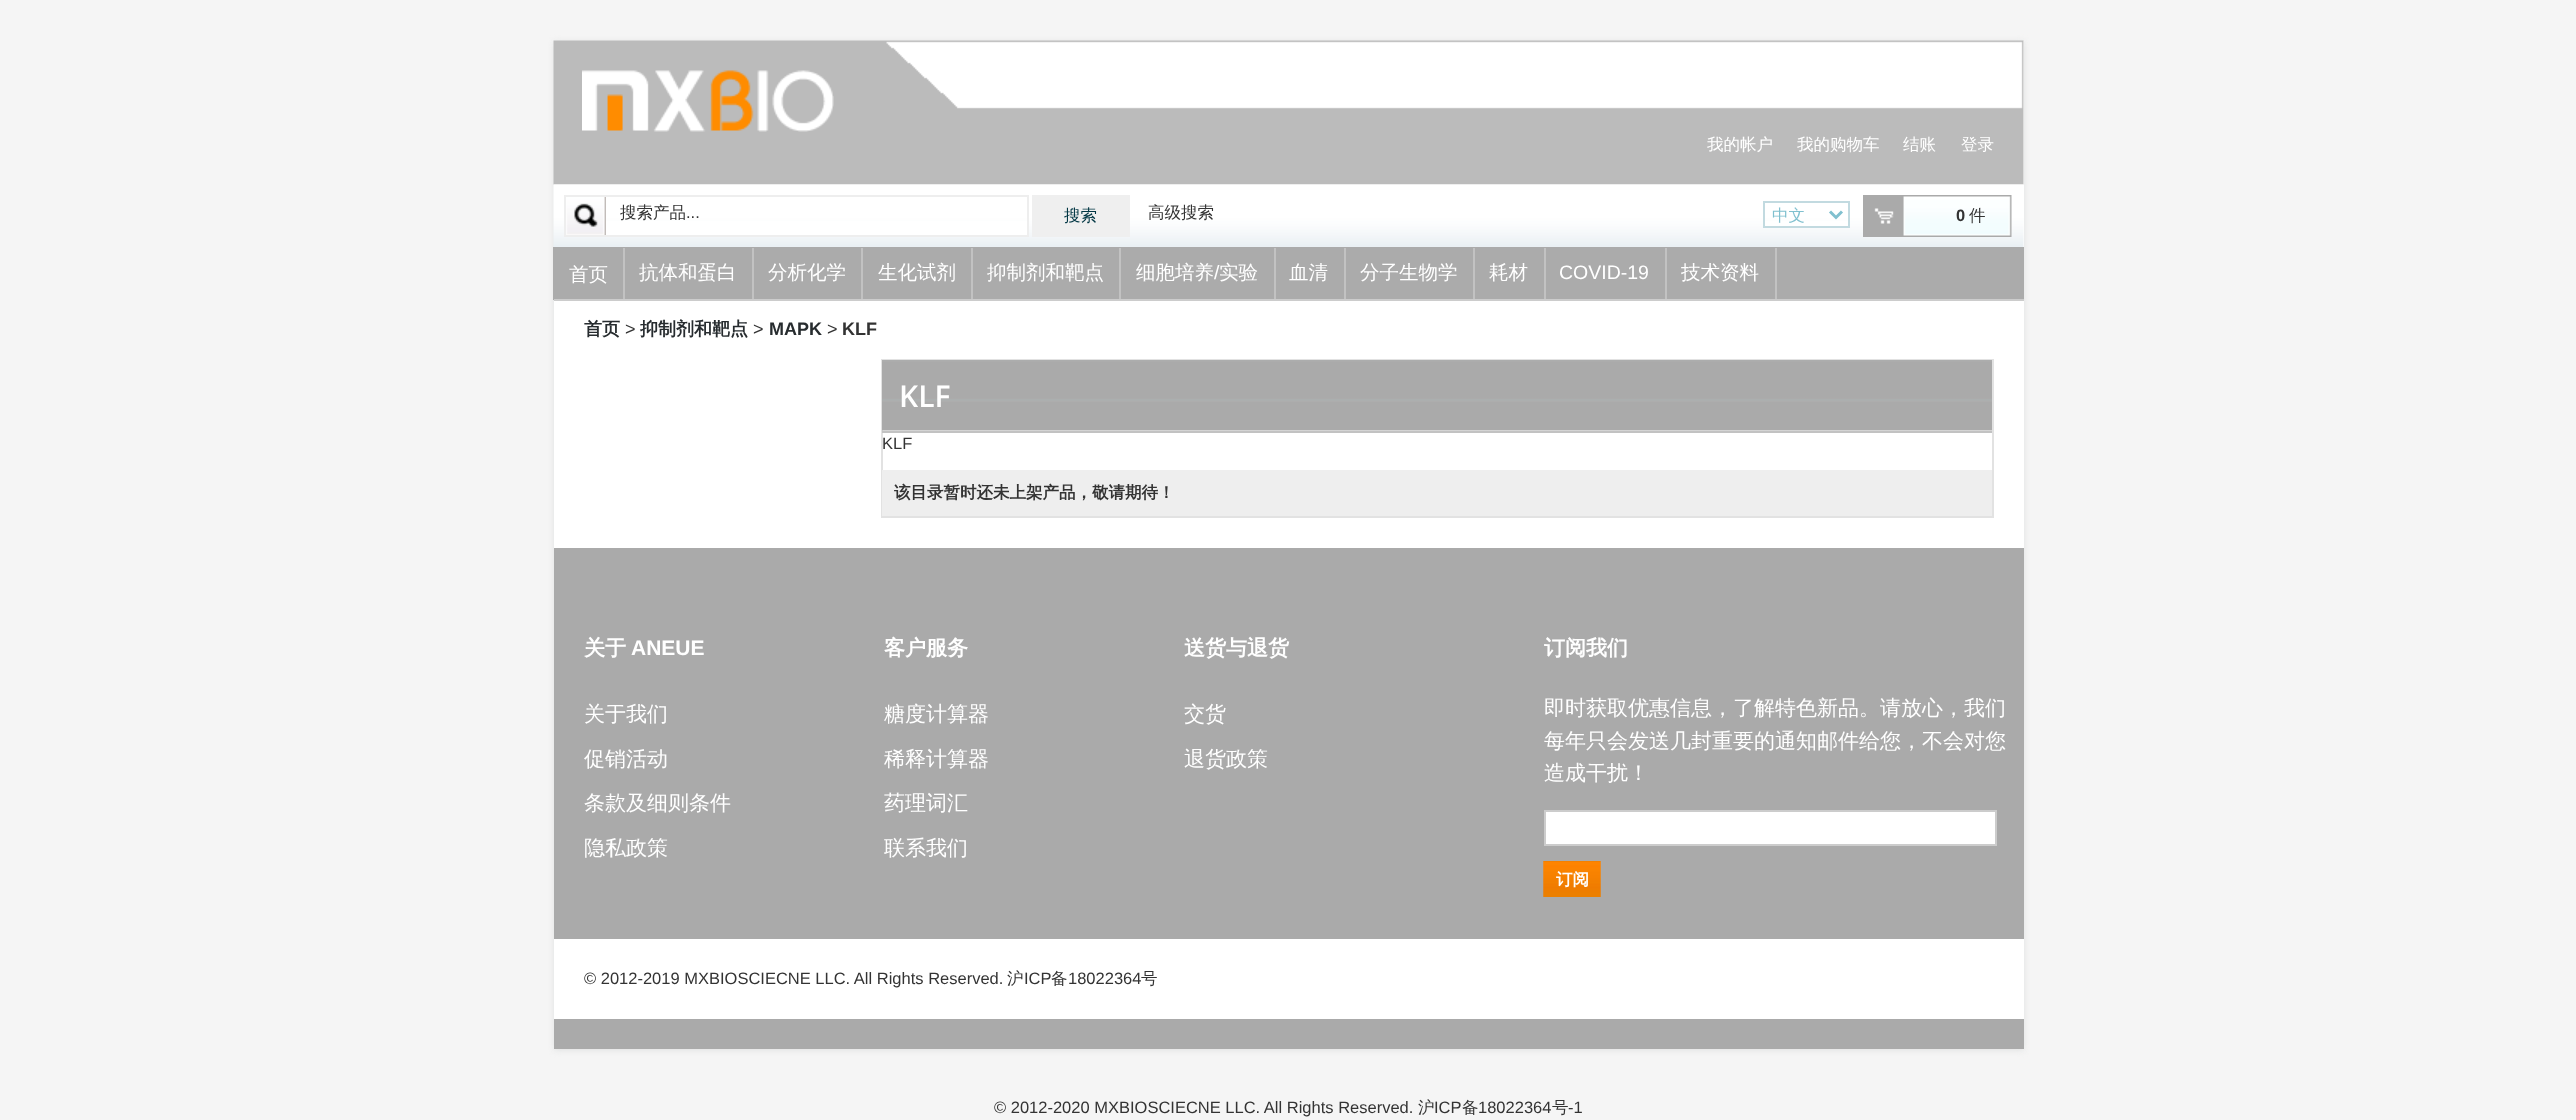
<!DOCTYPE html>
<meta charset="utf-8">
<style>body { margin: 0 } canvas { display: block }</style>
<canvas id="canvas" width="2576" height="1120"></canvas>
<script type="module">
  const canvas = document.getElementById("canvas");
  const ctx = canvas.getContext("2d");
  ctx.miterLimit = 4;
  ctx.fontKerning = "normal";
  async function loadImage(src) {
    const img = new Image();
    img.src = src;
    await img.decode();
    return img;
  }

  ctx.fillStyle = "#f5f5f5";
  ctx.fillRect(0, 0, 2576, 1120);
  ctx.fillStyle = "#dfe0e0";
  ctx.filter = "blur(3px)";
  ctx.beginPath();
  ctx.rect(554, 42, 1470, 1008);
  ctx.fill();
  ctx.filter = "none";
  ctx.fillStyle = "#ffffff";
  ctx.fillRect(554, 41, 1470, 507);
  ctx.drawImage(await loadImage("img1.png"), 553, 40, 1471, 145);
  ctx.drawImage(await loadImage("img2.png"), 582, 70, 252, 62);
  ctx.font = "500 16.5px WenQuanYi Zen Hei";
  ctx.fillText("我的帐户", 1707, 150);
  ctx.fillText("我的购物车", 1797, 150);
  ctx.fillText("结账", 1903, 150);
  ctx.fillText("登录", 1961, 150);
  ctx.drawImage(await loadImage("img3.png"), 553, 184, 1471, 63);
  ctx.fillRect(606, 221, 421, 14);
  ctx.drawImage(await loadImage("img4.png"), 566, 197, 40, 38);
  ctx.strokeStyle = "#eeeeee";
  ctx.lineWidth = 2;
  ctx.strokeRect(565, 196, 463, 40);
  ctx.fillStyle = "#333333";
  ctx.fillText("搜索产品", 620, 218);
  ctx.font = "16.5px Liberation Sans";
  ctx.fillText("...", 686, 218);
  ctx.fillStyle = "#efefef";
  ctx.fillRect(1032, 195, 98, 42);
  ctx.font = "500 16.5px WenQuanYi Zen Hei";
  ctx.fillStyle = "#013643";
  ctx.fillText("搜索", 1064, 221);
  ctx.fillStyle = "#333333";
  ctx.fillText("高级搜索", 1148, 218);
  ctx.fillStyle = "#ffffff";
  ctx.fillRect(1765, 221, 83, 5);
  ctx.strokeStyle = "#c2dae0";
  ctx.strokeRect(1764, 202, 85, 25);
  ctx.beginPath();
  ctx.moveTo(1830, 211.5);
  ctx.lineTo(1836, 217.5);
  ctx.lineTo(1842, 211.5);
  ctx.strokeStyle = "#80c0cf";
  ctx.lineWidth = 3;
  ctx.stroke();
  ctx.fillStyle = "#80c0cf";
  ctx.fillText("中文", 1772, 221);
  ctx.drawImage(await loadImage("img5.png"), 1863, 195, 149, 42);
  ctx.font = "bold 16.5px Liberation Sans";
  ctx.fillStyle = "#333333";
  ctx.fillText("0", 1956, 221);
  ctx.font = "500 16.5px WenQuanYi Zen Hei";
  ctx.fillText("件", 1969, 221);
  ctx.fillStyle = "#ababab";
  ctx.fillRect(553, 247, 1471, 53);
  ctx.fillStyle = "#cccccc";
  ctx.fillRect(554, 299, 1470, 2);
  ctx.fillStyle = "#c2c2c2";
  ctx.fillRect(623, 248, 2, 51);
  ctx.font = "500 19.5px WenQuanYi Zen Hei";
  ctx.fillStyle = "#ffffff";
  ctx.fillText("首页", 569, 281);
  ctx.fillStyle = "#c2c2c2";
  ctx.fillRect(752, 248, 2, 51);
  ctx.fillStyle = "#ffffff";
  ctx.fillText("抗体和蛋白", 639, 279);
  ctx.fillStyle = "#c2c2c2";
  ctx.fillRect(861, 248, 2, 51);
  ctx.fillStyle = "#ffffff";
  ctx.fillText("分析化学", 768, 279);
  ctx.fillStyle = "#c2c2c2";
  ctx.fillRect(971, 248, 2, 51);
  ctx.fillStyle = "#ffffff";
  ctx.fillText("生化试剂", 878, 279);
  ctx.fillStyle = "#c2c2c2";
  ctx.fillRect(1119, 248, 2, 51);
  ctx.fillStyle = "#ffffff";
  ctx.fillText("抑制剂和靶点", 987, 279);
  ctx.fillStyle = "#c2c2c2";
  ctx.fillRect(1274, 248, 2, 51);
  ctx.fillStyle = "#ffffff";
  ctx.fillText("细胞培养", 1136, 279);
  ctx.font = "19.5px Liberation Sans";
  ctx.fillText("/", 1214, 279);
  ctx.font = "500 19.5px WenQuanYi Zen Hei";
  ctx.fillText("实验", 1219, 279);
  ctx.fillStyle = "#c2c2c2";
  ctx.fillRect(1344, 248, 2, 51);
  ctx.fillStyle = "#ffffff";
  ctx.fillText("血清", 1289, 279);
  ctx.fillStyle = "#c2c2c2";
  ctx.fillRect(1473, 248, 2, 51);
  ctx.fillStyle = "#ffffff";
  ctx.fillText("分子生物学", 1360, 279);
  ctx.fillStyle = "#c2c2c2";
  ctx.fillRect(1544, 248, 2, 51);
  ctx.fillStyle = "#ffffff";
  ctx.fillText("耗材", 1489, 279);
  ctx.fillStyle = "#c2c2c2";
  ctx.fillRect(1665, 248, 2, 51);
  ctx.font = "19.5px Liberation Sans";
  ctx.fillStyle = "#ffffff";
  ctx.fillText("COVID-19", 1559, 279);
  ctx.fillStyle = "#c2c2c2";
  ctx.fillRect(1775, 248, 2, 51);
  ctx.font = "500 19.5px WenQuanYi Zen Hei";
  ctx.fillStyle = "#ffffff";
  ctx.fillText("技术资料", 1681, 279);
  ctx.font = "bold 18px WenQuanYi Zen Hei";
  ctx.fillStyle = "#272c2f";
  ctx.fillText("首页", 584, 335);
  ctx.font = "18px Liberation Sans";
  ctx.fillStyle = "#333333";
  ctx.fillText(">", 625, 335);
  ctx.font = "bold 18px WenQuanYi Zen Hei";
  ctx.fillStyle = "#272c2f";
  ctx.fillText("抑制剂和靶点", 640, 335);
  ctx.font = "18px Liberation Sans";
  ctx.fillStyle = "#333333";
  ctx.fillText(">", 753, 335);
  ctx.font = "bold 18px Liberation Sans";
  ctx.fillStyle = "#272c2f";
  ctx.fillText("MAPK", 769, 335);
  ctx.font = "18px Liberation Sans";
  ctx.fillStyle = "#333333";
  ctx.fillText(">", 827, 335);
  ctx.font = "bold 18px Liberation Sans";
  ctx.fillText("KLF", 842, 335);
  ctx.strokeStyle = "#e2e2e2";
  ctx.lineWidth = 2;
  ctx.strokeRect(882, 360, 1111, 157);
  ctx.fillStyle = "#c2c2c2";
  ctx.fillRect(882, 431, 1110, 2);
  ctx.drawImage(await loadImage("img6.png"), 882, 360, 1110, 71);
  ctx.font = "600 30px Open Sans";
  ctx.fillStyle = "#ffffff";
  ctx.fillText("KLF", 899, 407);
  ctx.font = "16.5px Liberation Sans";
  ctx.fillStyle = "#333333";
  ctx.fillText("KLF", 882, 449);
  ctx.fillStyle = "#eeeeee";
  ctx.fillRect(882, 470, 1110, 46);
  ctx.font = "bold 16.5px WenQuanYi Zen Hei";
  ctx.fillStyle = "#333333";
  ctx.fillText("该目录暂时还未上架产品，敬请期待！", 894, 498);
  ctx.fillStyle = "#aaaaaa";
  ctx.fillRect(554, 548, 1470, 501);
  ctx.font = "bold 21px WenQuanYi Zen Hei";
  ctx.fillStyle = "#ffffff";
  ctx.fillText("关于", 584, 655);
  ctx.font = "bold 21px Liberation Sans";
  ctx.fillText("ANEUE", 631, 655);
  ctx.font = "500 21px WenQuanYi Zen Hei";
  ctx.fillText("关于我们", 584, 721);
  ctx.fillText("促销活动", 584, 766);
  ctx.fillText("条款及细则条件", 584, 810);
  ctx.fillText("隐私政策", 584, 855);
  ctx.font = "bold 21px WenQuanYi Zen Hei";
  ctx.fillText("客户服务", 884, 655);
  ctx.font = "500 21px WenQuanYi Zen Hei";
  ctx.fillText("糖度计算器", 884, 721);
  ctx.fillText("稀释计算器", 884, 766);
  ctx.fillText("药理词汇", 884, 810);
  ctx.fillText("联系我们", 884, 855);
  ctx.font = "bold 21px WenQuanYi Zen Hei";
  ctx.fillText("送货与退货", 1184, 655);
  ctx.font = "500 21px WenQuanYi Zen Hei";
  ctx.fillText("交货", 1184, 721);
  ctx.fillText("退货政策", 1184, 766);
  ctx.font = "bold 21px WenQuanYi Zen Hei";
  ctx.fillText("订阅我们", 1544, 655);
  ctx.font = "500 21px WenQuanYi Zen Hei";
  ctx.fillText("即时获取优惠信息，了解特色新品。请放心，我们", 1544, 715);
  ctx.fillText("每年只会发送几封重要的通知邮件给您，不会对您", 1544, 748);
  ctx.fillText("造成干扰！", 1544, 780);
  ctx.beginPath();
  ctx.rect(1545, 811, 451, 34);
  ctx.fill();
  ctx.strokeStyle = "#cccccc";
  ctx.stroke();
  ctx.drawImage(await loadImage("img7.png"), 1543, 861, 58, 36);
  ctx.drawImage(await loadImage("img8.png"), 1543, 861, 58, 36);
  ctx.font = "bold 16.5px WenQuanYi Zen Hei";
  ctx.fillText("订阅", 1556, 885);
  ctx.fillRect(554, 939, 1470, 80);
  ctx.font = "16.5px Liberation Sans";
  ctx.fillStyle = "#333333";
  ctx.fillText("© 2012-2019 MXBIOSCIECNE LLC. All Rights Reserved.", 584, 984);
  ctx.font = "500 16.5px WenQuanYi Zen Hei";
  ctx.fillText("沪", 1007, 984);
  ctx.font = "16.5px Liberation Sans";
  ctx.fillText("ICP", 1024, 984);
  ctx.font = "500 16.5px WenQuanYi Zen Hei";
  ctx.fillText("备", 1051, 984);
  ctx.font = "16.5px Liberation Sans";
  ctx.fillText("18022364", 1068, 984);
  ctx.font = "500 16.5px WenQuanYi Zen Hei";
  ctx.fillText("号", 1141, 984);
  ctx.font = "16.5px Liberation Sans";
  ctx.fillText("© 2012-2020 MXBIOSCIECNE LLC. All Rights Reserved.", 994, 1113);
  ctx.font = "500 16.5px WenQuanYi Zen Hei";
  ctx.fillText("沪", 1418, 1113);
  ctx.font = "16.5px Liberation Sans";
  ctx.fillText("ICP", 1434, 1113);
  ctx.font = "500 16.5px WenQuanYi Zen Hei";
  ctx.fillText("备", 1462, 1113);
  ctx.font = "16.5px Liberation Sans";
  ctx.fillText("18022364", 1478, 1113);
  ctx.font = "500 16.5px WenQuanYi Zen Hei";
  ctx.fillText("号", 1552, 1113);
  ctx.font = "16.5px Liberation Sans";
  ctx.fillText("-1", 1568, 1113);
</script>
